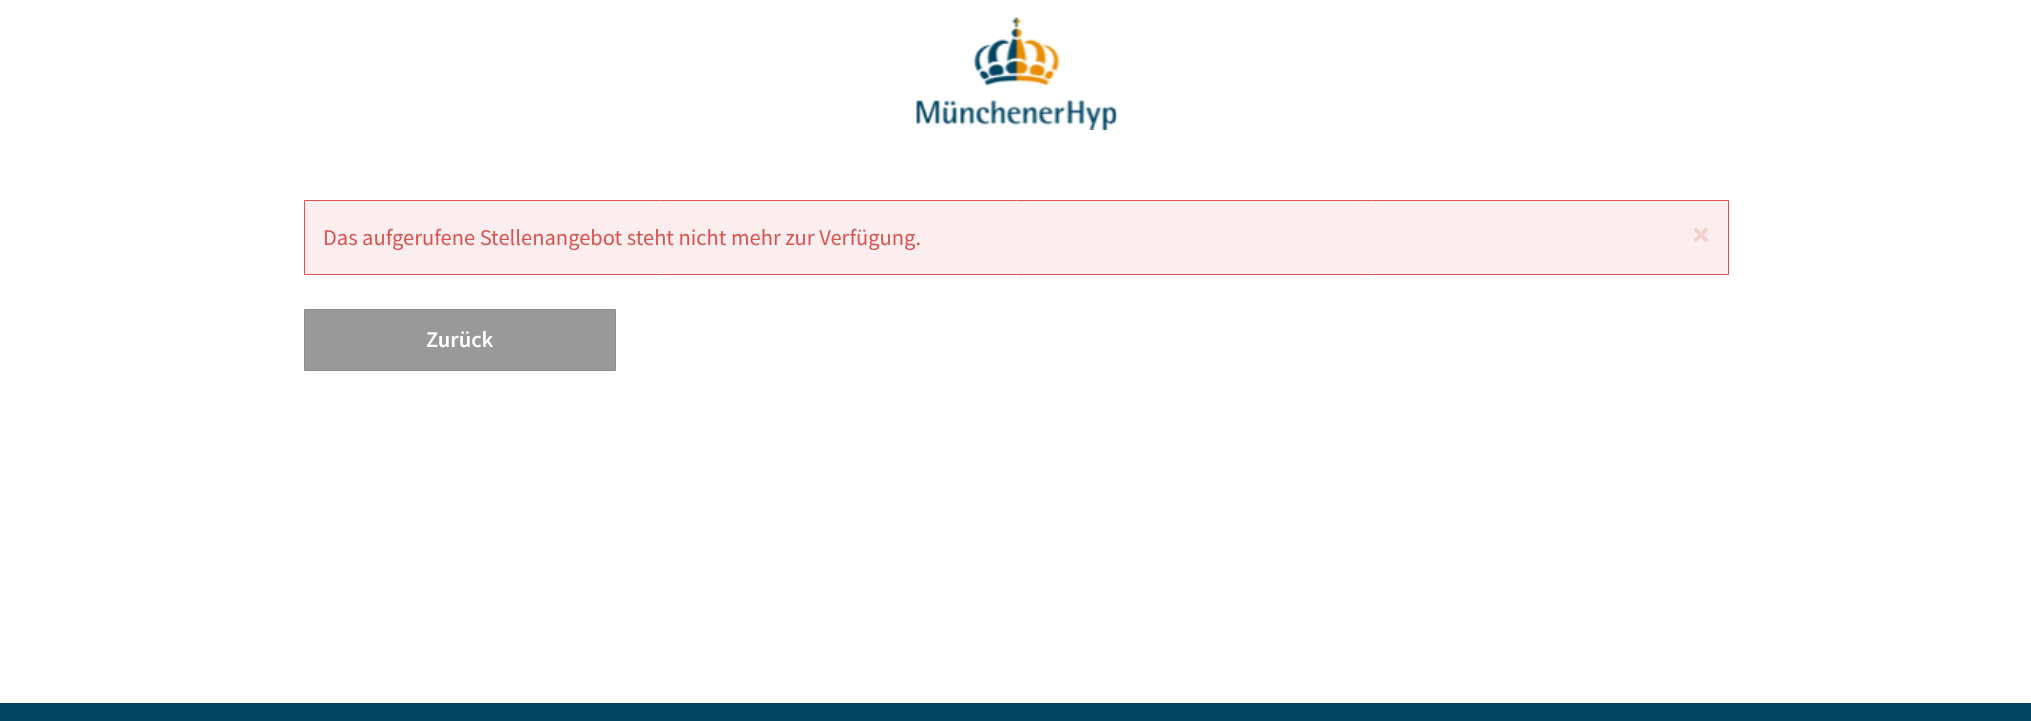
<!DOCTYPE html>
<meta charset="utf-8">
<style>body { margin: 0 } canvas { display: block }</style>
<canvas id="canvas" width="2031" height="721"></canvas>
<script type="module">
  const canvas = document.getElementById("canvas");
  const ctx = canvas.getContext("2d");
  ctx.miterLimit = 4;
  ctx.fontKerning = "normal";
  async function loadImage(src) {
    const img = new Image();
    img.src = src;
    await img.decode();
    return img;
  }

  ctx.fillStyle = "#ffffff";
  ctx.fillRect(0, 0, 2031, 721);
  ctx.drawImage(await loadImage("img1.png"), 916, 17, 201, 113);
  ctx.fillStyle = "#fceeee";
  ctx.beginPath();
  ctx.rect(304.5, 200.5, 1424, 74);
  ctx.fill();
  ctx.strokeStyle = "#d9534f";
  ctx.stroke();
  ctx.font = "22.5px Source Sans Pro";
  ctx.fillStyle = "#d9534f";
  ctx.fillText("Das aufgerufene Stellenangebot steht nicht mehr zur Verfügung.", 323, 245);
  ctx.font = "bold 34px Source Sans Pro";
  ctx.fillStyle = "#f5cfce";
  ctx.fillText("×", 1692, 246);
  ctx.fillStyle = "#999999";
  ctx.beginPath();
  ctx.rect(304.5, 309.5, 311, 61);
  ctx.fill();
  ctx.strokeStyle = "#8c8c8c";
  ctx.stroke();
  ctx.font = "600 22.5px Source Sans Pro";
  ctx.fillStyle = "#ffffff";
  ctx.fillText("Zurück", 426, 347);
  ctx.fillStyle = "#004461";
  ctx.fillRect(0, 703, 2031, 18);
</script>
